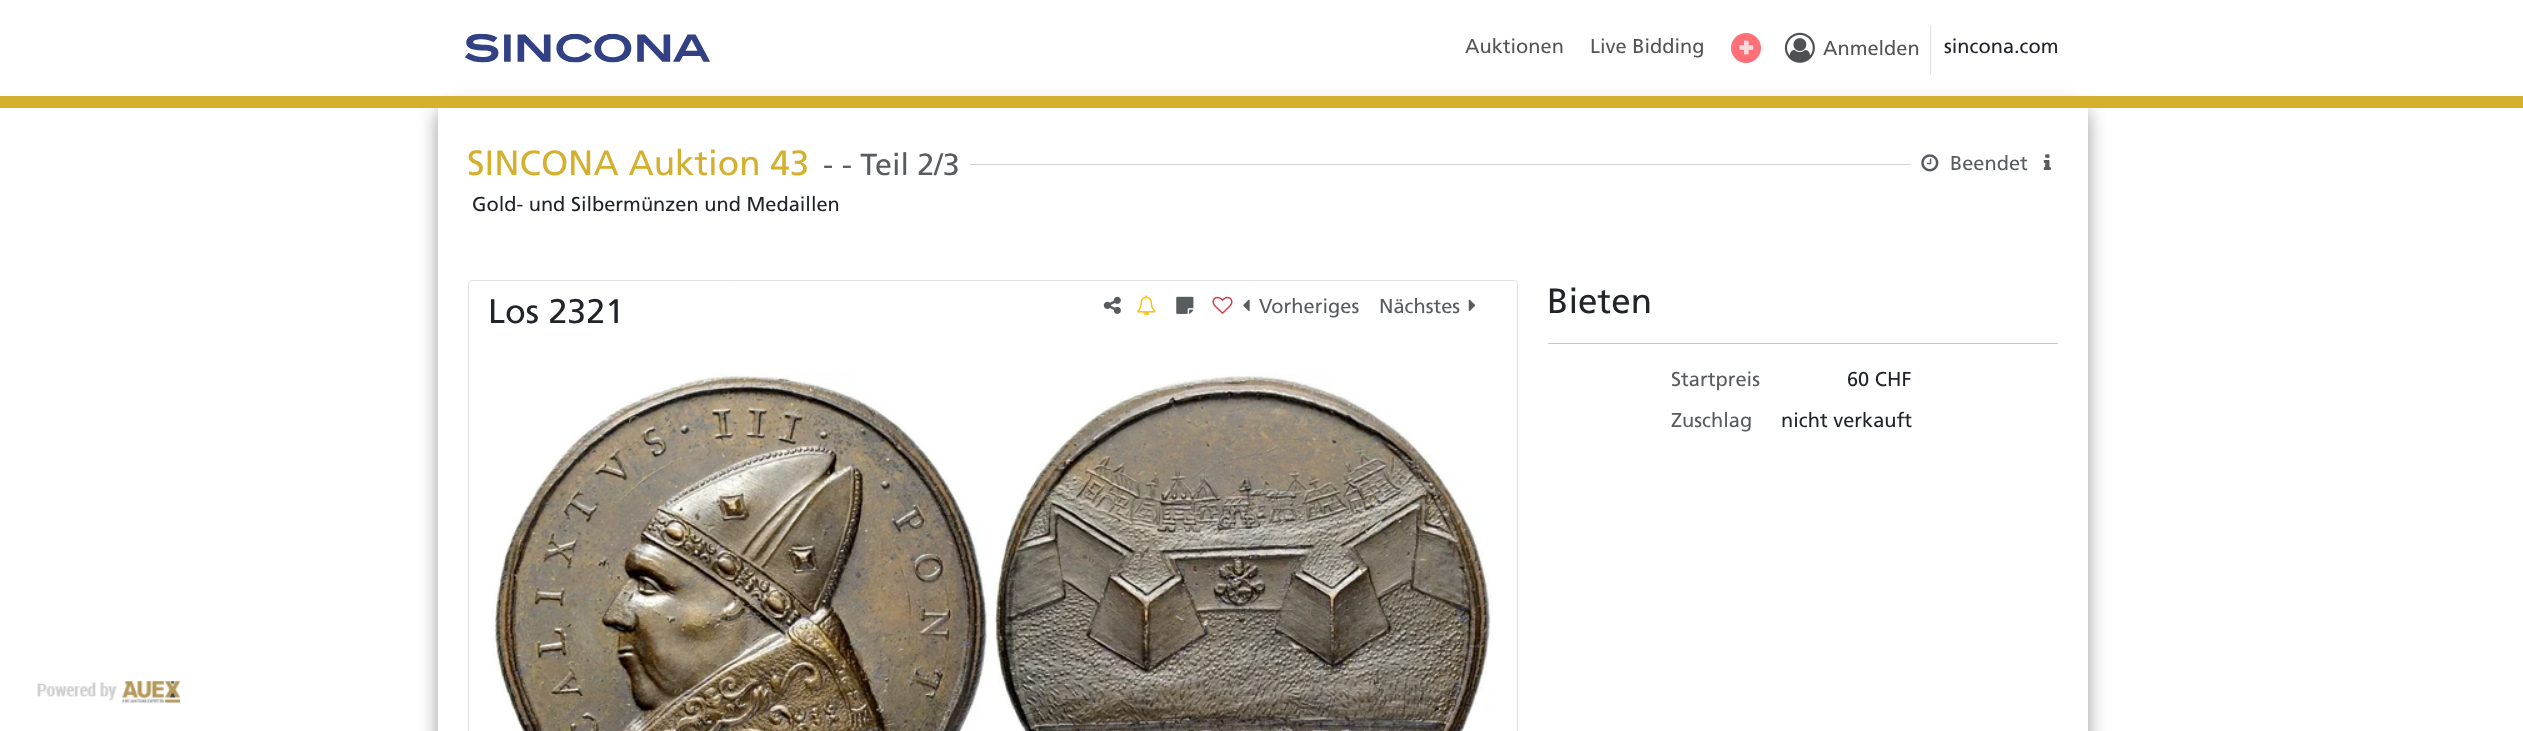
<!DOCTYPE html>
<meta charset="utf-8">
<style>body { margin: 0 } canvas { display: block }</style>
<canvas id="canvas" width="2523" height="731"></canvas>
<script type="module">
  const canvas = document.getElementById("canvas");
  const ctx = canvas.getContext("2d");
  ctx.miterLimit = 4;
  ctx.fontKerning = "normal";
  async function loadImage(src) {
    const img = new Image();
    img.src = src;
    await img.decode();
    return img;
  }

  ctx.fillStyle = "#ffffff";
  ctx.fillRect(0, 0, 2523, 731);
  ctx.drawImage(await loadImage("img1.png"), 465, 33, 245, 30);
  ctx.font = "20px 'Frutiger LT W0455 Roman'";
  ctx.fillStyle = "#555555";
  ctx.fillText("Auktionen", 1465, 53);
  ctx.fillText("Live Bidding", 1590, 53);
  ctx.drawImage(await loadImage("img2.png"), 1731, 33, 30, 30);
  ctx.drawImage(await loadImage("img3.png"), 1784, 32, 31, 31);
  ctx.fillText("Anmelden", 1823, 55);
  ctx.fillStyle = "#dee2e6";
  ctx.fillRect(1930, 25, 1, 49);
  ctx.fillStyle = "#212529";
  ctx.fillText("sincona.com", 1944, 53);
  ctx.fillStyle = "#999999";
  ctx.filter = "blur(9.5px)";
  ctx.beginPath();
  ctx.roundRect(438, 108, 1650, 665, 13);
  ctx.fill();
  ctx.filter = "none";
  ctx.fillStyle = "#d5b02e";
  ctx.fillRect(0, 96, 2523, 12);
  ctx.fillStyle = "#ffffff";
  ctx.fillRect(438, 108, 1650, 623);
  ctx.font = "35px 'Frutiger LT W0455 Roman'";
  ctx.fillStyle = "#d5b02e";
  ctx.fillText("SINCONA Auktion 43", 467, 175);
  ctx.font = "30.5px 'Frutiger LT W0455 Roman'";
  ctx.fillStyle = "#595c5f";
  ctx.fillText("- - Teil 2/3", 823, 175);
  ctx.fillStyle = "#d3d3d3";
  ctx.fillRect(970, 164, 941, 1);
  ctx.drawImage(await loadImage("img4.png"), 1921, 154, 18, 18);
  ctx.font = "20px 'Frutiger LT W0455 Roman'";
  ctx.fillStyle = "#595c5f";
  ctx.fillText("Beendet", 1950, 170);
  ctx.drawImage(await loadImage("img5.png"), 2043, 154, 8, 16);
  ctx.fillStyle = "#212529";
  ctx.fillText("Gold- und Silbermünzen und Medaillen", 472, 211);
  ctx.beginPath();
  ctx.roundRect(468.5, 280.5, 1049, 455, 3.5);
  ctx.strokeStyle = "#dee2e6";
  ctx.stroke();
  ctx.font = "34px 'Frutiger LT W0455 Roman'";
  ctx.fillText("Los 2321", 488, 323);
  ctx.drawImage(await loadImage("img6.png"), 1103, 296, 18, 18);
  ctx.drawImage(await loadImage("img7.png"), 1137, 295, 19, 21);
  ctx.drawImage(await loadImage("img8.png"), 1176, 296, 18, 18);
  ctx.drawImage(await loadImage("img9.png"), 1212, 296, 21, 18);
  ctx.drawImage(await loadImage("img10.png"), 1243, 299, 7, 12);
  ctx.font = "20px 'Frutiger LT W0455 Roman'";
  ctx.fillStyle = "#595c5f";
  ctx.fillText("Vorheriges", 1259, 313);
  ctx.fillText("Nächstes", 1379, 313);
  ctx.drawImage(await loadImage("img11.png"), 1468, 299, 8, 12);
  ctx.drawImage(await loadImage("img12.png"), 492, 374, 1001, 357);
  ctx.font = "35px 'Frutiger LT W0455 Roman'";
  ctx.fillStyle = "#212529";
  ctx.fillText("Bieten", 1547, 313);
  ctx.fillStyle = "#c8c9ca";
  ctx.fillRect(1548, 343, 510, 1);
  ctx.font = "20px 'Frutiger LT W0455 Roman'";
  ctx.fillStyle = "#595c5f";
  ctx.fillText("Startpreis", 1671, 386);
  ctx.fillStyle = "#212529";
  ctx.fillText("60 CHF", 1847, 386);
  ctx.fillStyle = "#595c5f";
  ctx.fillText("Zuschlag", 1671, 427);
  ctx.fillStyle = "#212529";
  ctx.fillText("nicht verkauft", 1781, 427);
  ctx.drawImage(await loadImage("img13.png"), 37, 681, 143, 22);
</script>
